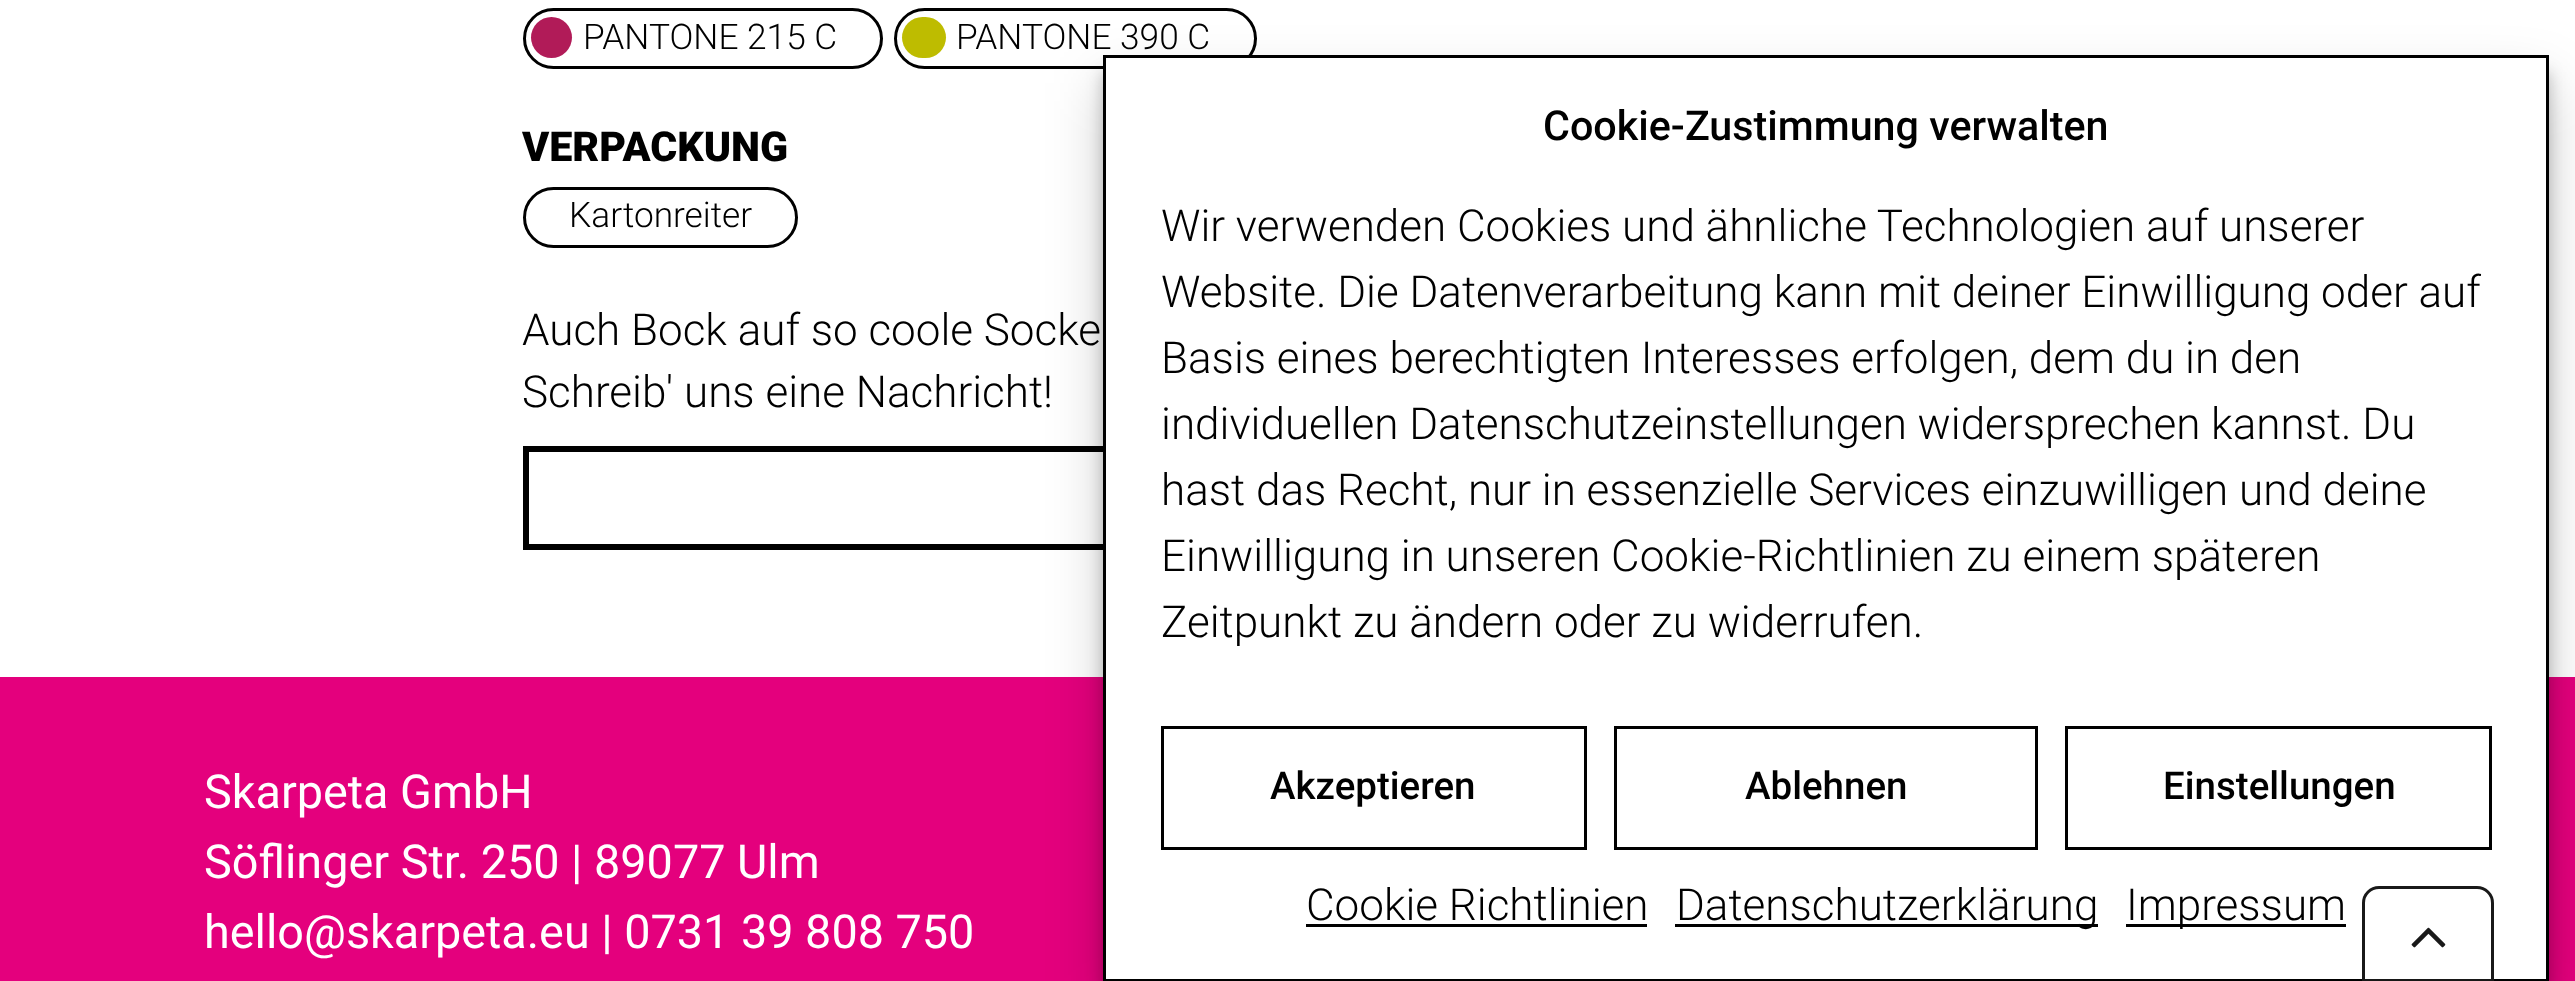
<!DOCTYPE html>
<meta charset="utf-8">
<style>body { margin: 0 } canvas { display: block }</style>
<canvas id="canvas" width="2575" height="981"></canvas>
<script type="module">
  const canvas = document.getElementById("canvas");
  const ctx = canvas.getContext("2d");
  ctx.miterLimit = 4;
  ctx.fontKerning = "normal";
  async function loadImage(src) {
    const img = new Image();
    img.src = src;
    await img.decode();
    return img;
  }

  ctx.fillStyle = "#ffffff";
  ctx.fillRect(0, 0, 2575, 981);
  ctx.beginPath();
  ctx.roundRect(524.5, 9.5, 357, 58, 29);
  ctx.strokeStyle = "#000000";
  ctx.lineWidth = 3;
  ctx.stroke();
  ctx.fillStyle = "#b11b58";
  ctx.beginPath();
  ctx.arc(551.5, 37.5, 20.5, 0, Math.PI * 2);
  ctx.fill();
  ctx.font = "300 35.25px Roboto";
  ctx.fillStyle = "#000000";
  ctx.fillText("PANTONE 215 C", 583, 49);
  ctx.beginPath();
  ctx.roundRect(895.5, 9.5, 360, 58, 29);
  ctx.stroke();
  ctx.fillStyle = "#bebc00";
  ctx.beginPath();
  ctx.roundRect(902, 17, 44, 41, 20.5);
  ctx.fill();
  ctx.fillStyle = "#000000";
  ctx.fillText("PANTONE 390 C", 956, 49);
  ctx.font = "900 41.25px Roboto";
  ctx.fillText("VERPACKUNG", 522, 161);
  ctx.beginPath();
  ctx.roundRect(524.5, 188.5, 272, 58, 29);
  ctx.stroke();
  ctx.font = "300 35.25px Roboto";
  ctx.fillText("Kartonreiter", 569, 227);
  ctx.font = "300 44px Roboto";
  ctx.fillText("Auch Bock auf so coole Socke", 522, 345);
  ctx.fillText("Schreib' uns eine Nachricht!", 522, 407);
  ctx.lineWidth = 6;
  ctx.strokeRect(526, 449, 1963, 98);
  ctx.fillStyle = "#e4007d";
  ctx.fillRect(0, 677, 2575, 304);
  ctx.font = "46.75px Roboto";
  ctx.fillStyle = "#ffffff";
  ctx.fillText("Skarpeta GmbH", 204, 808);
  ctx.fillText("Söflinger Str. 250 | 89077 Ulm", 204, 878);
  ctx.fillText("hello@skarpeta.eu | 0731 39 808 750", 204, 948);
  ctx.fillStyle = "rgba(0, 0, 0, 0.23)";
  ctx.filter = "blur(8px)";
  ctx.beginPath();
  ctx.rect(1103, 72, 1446, 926);
  ctx.fill();
  ctx.filter = "none";
  ctx.fillStyle = "rgba(0, 0, 0, 0.19)";
  ctx.filter = "blur(27.5px)";
  ctx.beginPath();
  ctx.rect(1103, 83, 1446, 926);
  ctx.fill();
  ctx.filter = "none";
  ctx.fillStyle = "#ffffff";
  ctx.beginPath();
  ctx.rect(1104.5, 56.5, 1443, 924);
  ctx.fill();
  ctx.lineWidth = 3;
  ctx.stroke();
  ctx.font = "500 41.25px Roboto";
  ctx.fillStyle = "#000000";
  ctx.fillText("Cookie-Zustimmung verwalten", 1543, 140);
  ctx.font = "300 44px Roboto";
  ctx.fillText("Wir verwenden Cookies und ähnliche Technologien auf unserer", 1161, 241);
  ctx.fillText("Website. Die Datenverarbeitung kann mit deiner Einwilligung oder auf", 1161, 307);
  ctx.fillText("Basis eines berechtigten Interesses erfolgen, dem du in den", 1161, 373);
  ctx.fillText("individuellen Datenschutzeinstellungen widersprechen kannst. Du", 1161, 439);
  ctx.fillText("hast das Recht, nur in essenzielle Services einzuwilligen und deine", 1161, 505);
  ctx.fillText("Einwilligung in unseren Cookie-Richtlinien zu einem späteren", 1161, 571);
  ctx.fillText("Zeitpunkt zu ändern oder zu widerrufen.", 1161, 637);
  ctx.strokeRect(1162.5, 727.5, 423, 121);
  ctx.font = "500 38.5px Roboto";
  ctx.fillText("Akzeptieren", 1270, 799);
  ctx.strokeRect(1615.5, 727.5, 421, 121);
  ctx.fillText("Ablehnen", 1745, 799);
  ctx.strokeRect(2066.5, 727.5, 424, 121);
  ctx.fillText("Einstellungen", 2163, 799);
  ctx.font = "300 44px Roboto";
  ctx.fillText("Cookie Richtlinien", 1306, 920);
  ctx.fillRect(1306, 924, 341, 3);
  ctx.fillRect(1675, 924, 423, 3);
  ctx.fillText("Datenschutzerklärung", 1676, 920);
  ctx.fillRect(2126, 924, 220, 3);
  ctx.fillText("Impressum", 2126, 920);
  ctx.fillStyle = "rgba(255, 255, 255, 0.9)";
  ctx.beginPath();
  ctx.moveTo(2379, 886);
  ctx.lineTo(2477, 886);
  ctx.bezierCurveTo(2486.5, 886, 2494, 893.5, 2494, 903);
  ctx.lineTo(2494, 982);
  ctx.lineTo(2362, 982);
  ctx.lineTo(2362, 903);
  ctx.bezierCurveTo(2362, 893.5, 2369.5, 886, 2379, 886);
  ctx.closePath();
  ctx.fill();
  ctx.beginPath();
  ctx.moveTo(2379, 887.5);
  ctx.lineTo(2477, 887.5);
  ctx.bezierCurveTo(2485.5, 887.5, 2492.5, 894.5, 2492.5, 903);
  ctx.lineTo(2492.5, 980.5);
  ctx.lineTo(2363.5, 980.5);
  ctx.lineTo(2363.5, 903);
  ctx.bezierCurveTo(2363.5, 894.5, 2370.5, 887.5, 2379, 887.5);
  ctx.closePath();
  ctx.strokeStyle = "rgba(0, 0, 0, 0.9)";
  ctx.stroke();
  ctx.drawImage(await loadImage("img1.png"), 2411, 927, 35, 21);
</script>
